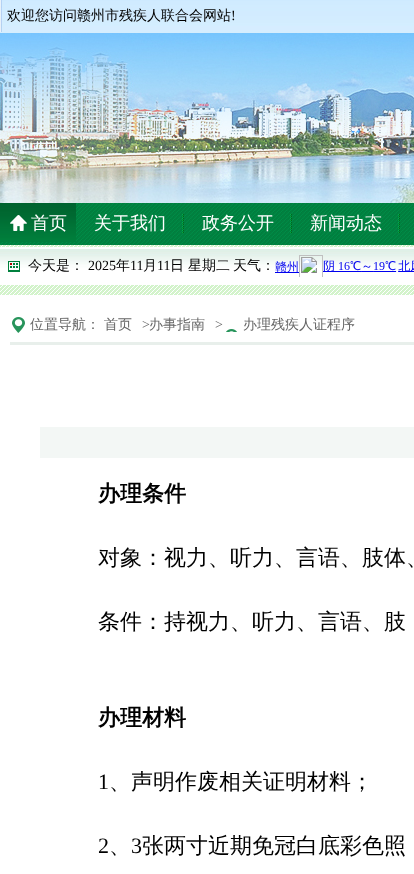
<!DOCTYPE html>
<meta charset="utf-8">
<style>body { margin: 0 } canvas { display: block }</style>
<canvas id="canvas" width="414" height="874"></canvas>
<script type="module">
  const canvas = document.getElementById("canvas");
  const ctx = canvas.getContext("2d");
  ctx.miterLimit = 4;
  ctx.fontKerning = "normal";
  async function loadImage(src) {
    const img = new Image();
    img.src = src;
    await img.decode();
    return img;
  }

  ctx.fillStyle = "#ffffff";
  ctx.fillRect(0, 0, 414, 874);
  ctx.drawImage(await loadImage("img1.png"), 0, 245, 414, 50);
  ctx.drawImage(await loadImage("img2.png"), 0, 0, 414, 33);
  ctx.drawImage(await loadImage("img3.png"), 0, 0, 2, 32);
  ctx.font = "500 14px WenQuanYi Zen Hei";
  ctx.fillStyle = "#000000";
  ctx.fillText("欢迎您访问赣州市残疾人联合会网站", 7, 20);
  ctx.font = "14px Liberation Serif";
  ctx.fillText("!", 231, 20);
  ctx.drawImage(await loadImage("img4.png"), 0, 33, 414, 170);
  ctx.drawImage(await loadImage("img5.png"), 0, 203, 414, 42);
  ctx.drawImage(await loadImage("img7.png"), 0, 203, 76, 39);
  ctx.drawImage(await loadImage("img6.png"), 10, 215, 17, 16);
  ctx.font = "500 18px WenQuanYi Zen Hei";
  ctx.fillStyle = "#ffffff";
  ctx.fillText("首页", 31, 229);
  ctx.drawImage(await loadImage("img8.png"), 182, 214, 2, 19);
  ctx.fillText("关于我们", 94, 229);
  ctx.drawImage(await loadImage("img8.png"), 290, 214, 2, 19);
  ctx.fillText("政务公开", 202, 229);
  ctx.drawImage(await loadImage("img8.png"), 398, 214, 2, 19);
  ctx.fillText("新闻动态", 310, 229);
  ctx.drawImage(await loadImage("img9.png"), 0, 247, 414, 38);
  ctx.drawImage(await loadImage("img10.png"), 8, 261, 12, 11);
  ctx.font = "500 14px WenQuanYi Zen Hei";
  ctx.fillStyle = "#000000";
  ctx.fillText("今天是：", 28, 270);
  ctx.font = "14px Liberation Serif";
  ctx.fillText("2025", 88, 270);
  ctx.font = "500 14px WenQuanYi Zen Hei";
  ctx.fillText("年", 116, 270);
  ctx.font = "14px Liberation Serif";
  ctx.fillText("11", 130, 270);
  ctx.font = "500 14px WenQuanYi Zen Hei";
  ctx.fillText("月", 143, 270);
  ctx.font = "14px Liberation Serif";
  ctx.fillText("11", 157, 270);
  ctx.font = "500 14px WenQuanYi Zen Hei";
  ctx.fillText("日", 170, 270);
  ctx.fillText("星期二", 188, 270);
  ctx.fillText("天气：", 233, 270);
  ctx.drawImage(await loadImage("img11.png"), 275, 255, 139, 22);
  ctx.fillStyle = "#e8efeb";
  ctx.fillRect(10, 342, 404, 3);
  ctx.drawImage(await loadImage("img12.png"), 12, 317, 13, 16);
  ctx.fillStyle = "#666666";
  ctx.fillText("位置导航：", 30, 329);
  ctx.fillText("首页", 104, 329);
  ctx.font = "14px Liberation Serif";
  ctx.fillText(">", 142, 329);
  ctx.font = "500 14px WenQuanYi Zen Hei";
  ctx.fillText("办事指南", 149, 329);
  ctx.font = "14px Liberation Serif";
  ctx.fillText(">", 215, 329);
  ctx.font = "500 14px WenQuanYi Zen Hei";
  ctx.fillText("办理残疾人证程序", 243, 329);
  ctx.drawImage(await loadImage("img13.png"), 226, 329, 11, 3);
  ctx.fillStyle = "#f3f7f5";
  ctx.fillRect(40, 427, 374, 31);
  ctx.font = "bold 22px WenQuanYi Zen Hei";
  ctx.fillStyle = "#000000";
  ctx.fillText("办理条件", 98, 501);
  ctx.font = "500 22px WenQuanYi Zen Hei";
  ctx.fillText("对象：视力、听力、言语、肢体、", 98, 565);
  ctx.fillText("条件：持视力、听力、言语、肢", 98, 629);
  ctx.font = "bold 22px WenQuanYi Zen Hei";
  ctx.fillText("办理材料", 98, 725);
  ctx.font = "22px Liberation Serif";
  ctx.fillText("1", 98, 789);
  ctx.font = "500 22px WenQuanYi Zen Hei";
  ctx.fillText("、声明作废相关证明材料；", 109, 789);
  ctx.font = "22px Liberation Serif";
  ctx.fillText("2", 98, 853);
  ctx.font = "500 22px WenQuanYi Zen Hei";
  ctx.fillText("、", 109, 853);
  ctx.font = "22px Liberation Serif";
  ctx.fillText("3", 131, 853);
  ctx.font = "500 22px WenQuanYi Zen Hei";
  ctx.fillText("张两寸近期免冠白底彩色照", 142, 853);
</script>
